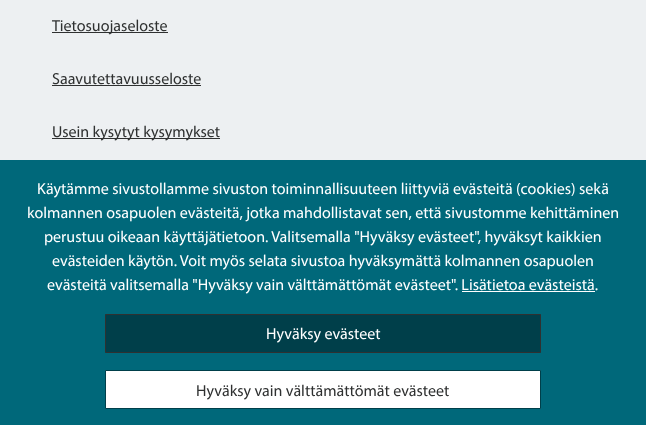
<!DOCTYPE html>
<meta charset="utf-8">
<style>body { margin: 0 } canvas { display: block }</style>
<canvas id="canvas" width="646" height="425"></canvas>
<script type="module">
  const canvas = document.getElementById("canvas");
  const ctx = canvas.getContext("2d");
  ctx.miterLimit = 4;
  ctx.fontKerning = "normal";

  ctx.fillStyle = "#edf0f2";
  ctx.fillRect(0, 0, 646, 425);
  ctx.fillStyle = "#2f3131";
  ctx.fillRect(52, 32, 116, 1);
  ctx.font = "16px Myriad";
  ctx.fillText("Tietosuojaseloste", 52, 31);
  ctx.fillText("Saavutettavuusseloste", 52, 84);
  ctx.fillRect(52, 85, 149, 1);
  ctx.fillRect(52, 138, 168, 1);
  ctx.fillText("Usein kysytyt kysymykset", 52, 137);
  ctx.fillStyle = "#00687a";
  ctx.fillRect(0, 160, 646, 265);
  ctx.fillStyle = "#ffffff";
  ctx.fillText("Käytämme sivustollamme sivuston toiminnallisuuteen liittyviä evästeitä (cookies) sekä", 37, 194);
  ctx.fillText("kolmannen osapuolen evästeitä, jotka mahdollistavat sen, että sivustomme kehittäminen", 27, 218);
  ctx.fillText("perustuu oikeaan käyttäjätietoon. Valitsemalla \"Hyväksy evästeet\", hyväksyt kaikkien", 44, 242);
  ctx.fillText("evästeiden käytön. Voit myös selata sivustoa hyväksymättä kolmannen osapuolen", 52, 266);
  ctx.fillText("evästeitä valitsemalla \"Hyväksy vain välttämättömät evästeet\". Lisätietoa evästeistä.", 47, 290);
  ctx.fillRect(462, 291, 133, 1);
  ctx.fillStyle = "#003f4a";
  ctx.beginPath();
  ctx.rect(105.5, 314.5, 435, 38);
  ctx.fill();
  ctx.strokeStyle = "#2f3131";
  ctx.stroke();
  ctx.fillStyle = "#ffffff";
  ctx.fillText("Hyväksy evästeet", 266, 339);
  ctx.beginPath();
  ctx.rect(105.5, 370.5, 435, 38);
  ctx.fill();
  ctx.strokeStyle = "#003f4a";
  ctx.stroke();
  ctx.fillStyle = "#2f3131";
  ctx.fillText("Hyväksy vain välttämättömät evästeet", 196, 396);
</script>
